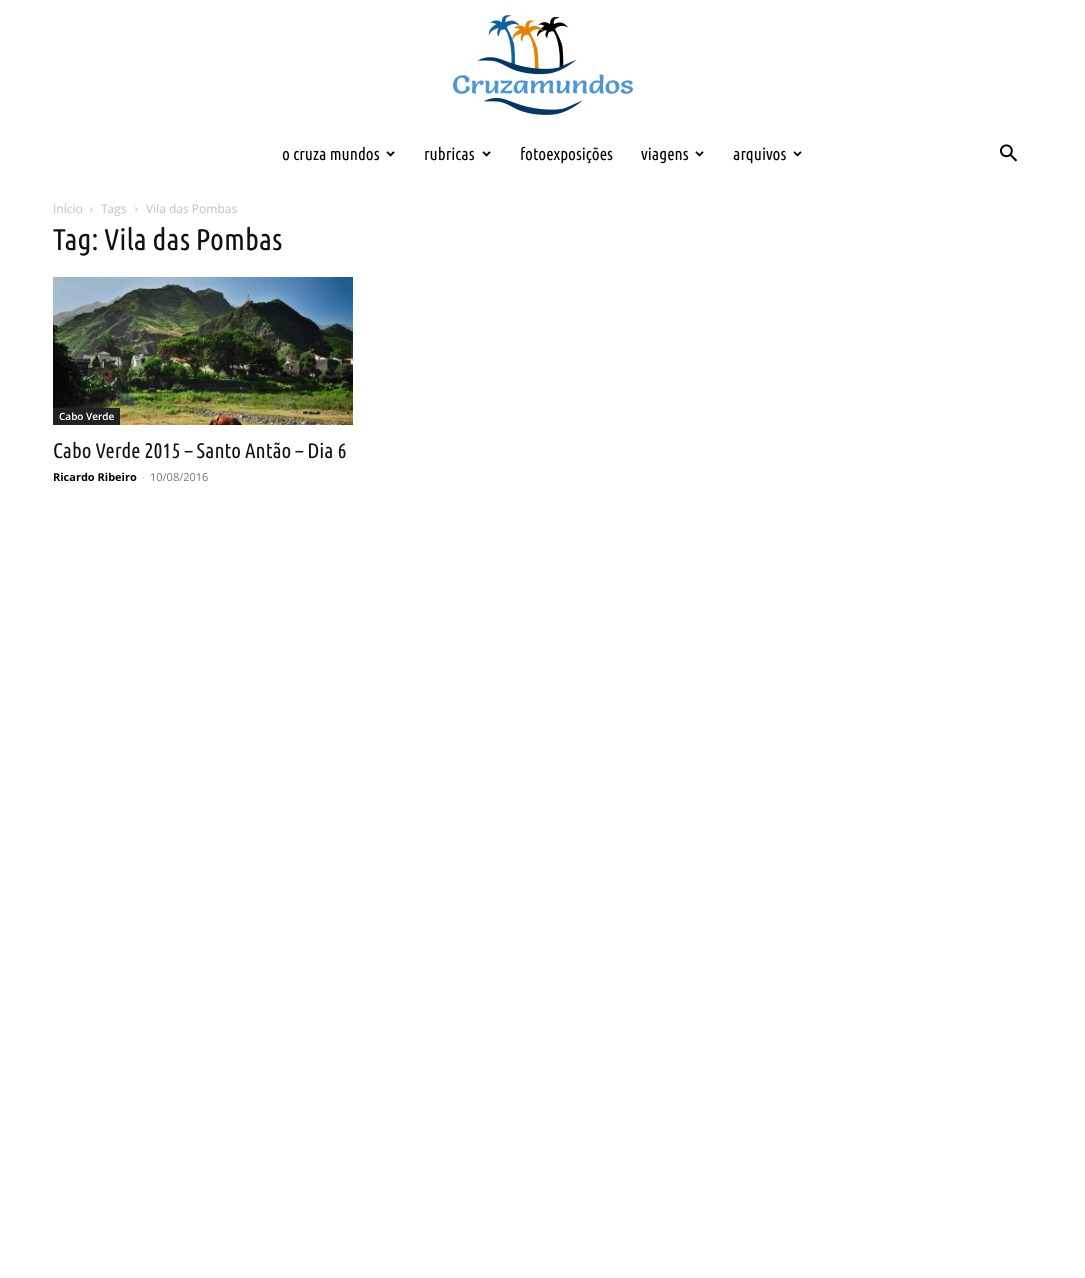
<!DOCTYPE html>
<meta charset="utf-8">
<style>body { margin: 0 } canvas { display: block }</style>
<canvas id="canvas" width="1085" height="1278"></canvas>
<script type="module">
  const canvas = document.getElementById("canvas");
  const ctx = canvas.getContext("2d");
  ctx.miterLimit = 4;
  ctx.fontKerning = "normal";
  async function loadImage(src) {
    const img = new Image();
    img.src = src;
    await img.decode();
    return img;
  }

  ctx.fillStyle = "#ffffff";
  ctx.fillRect(0, 0, 1085, 1278);
  ctx.drawImage(await loadImage("img1.png"), 453, 15, 180, 100);
  ctx.font = "17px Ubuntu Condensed";
  ctx.fillStyle = "#000000";
  ctx.fillText("o cruza mundos", 282, 160);
  ctx.drawImage(await loadImage("img2.png"), 386, 151, 9, 6);
  ctx.fillText("rubricas", 424, 160);
  ctx.drawImage(await loadImage("img2.png"), 482, 151, 9, 6);
  ctx.fillText("fotoexposições", 520, 160);
  ctx.fillText("viagens", 641, 160);
  ctx.drawImage(await loadImage("img2.png"), 695, 151, 9, 6);
  ctx.fillText("arquivos", 733, 160);
  ctx.drawImage(await loadImage("img2.png"), 793, 151, 9, 6);
  ctx.drawImage(await loadImage("img3.png"), 1000, 144, 17, 18);
  ctx.font = "12px Open Sans";
  ctx.fillStyle = "#c3c3c3";
  ctx.fillText("Início", 53, 213);
  ctx.drawImage(await loadImage("img4.png"), 90, 207, 3, 5);
  ctx.fillText("Tags", 101, 213);
  ctx.drawImage(await loadImage("img4.png"), 135, 207, 3, 5);
  ctx.fillText("Vila das Pombas", 146, 213);
  ctx.font = "30px Ubuntu Condensed";
  ctx.fillStyle = "#111111";
  ctx.fillText("Tag: Vila das Pombas", 53, 250);
  ctx.drawImage(await loadImage("img5.png"), 53, 277, 300, 148);
  ctx.fillStyle = "#222222";
  ctx.fillRect(53, 408, 67, 17);
  ctx.font = "600 10px Open Sans";
  ctx.fillStyle = "#ffffff";
  ctx.fillText("Cabo Verde", 59, 420);
  ctx.font = "21px Ubuntu Condensed";
  ctx.fillStyle = "#111111";
  ctx.fillText("Cabo Verde 2015 – Santo Antão – Dia 6", 53, 458);
  ctx.font = "bold 11px Open Sans";
  ctx.fillStyle = "#000000";
  ctx.fillText("Ricardo Ribeiro", 53, 481);
  ctx.font = "11px Open Sans";
  ctx.fillStyle = "#cccccc";
  ctx.fillText("-", 141, 481);
  ctx.fillStyle = "#767676";
  ctx.fillText("10/08/2016", 150, 481);
</script>
